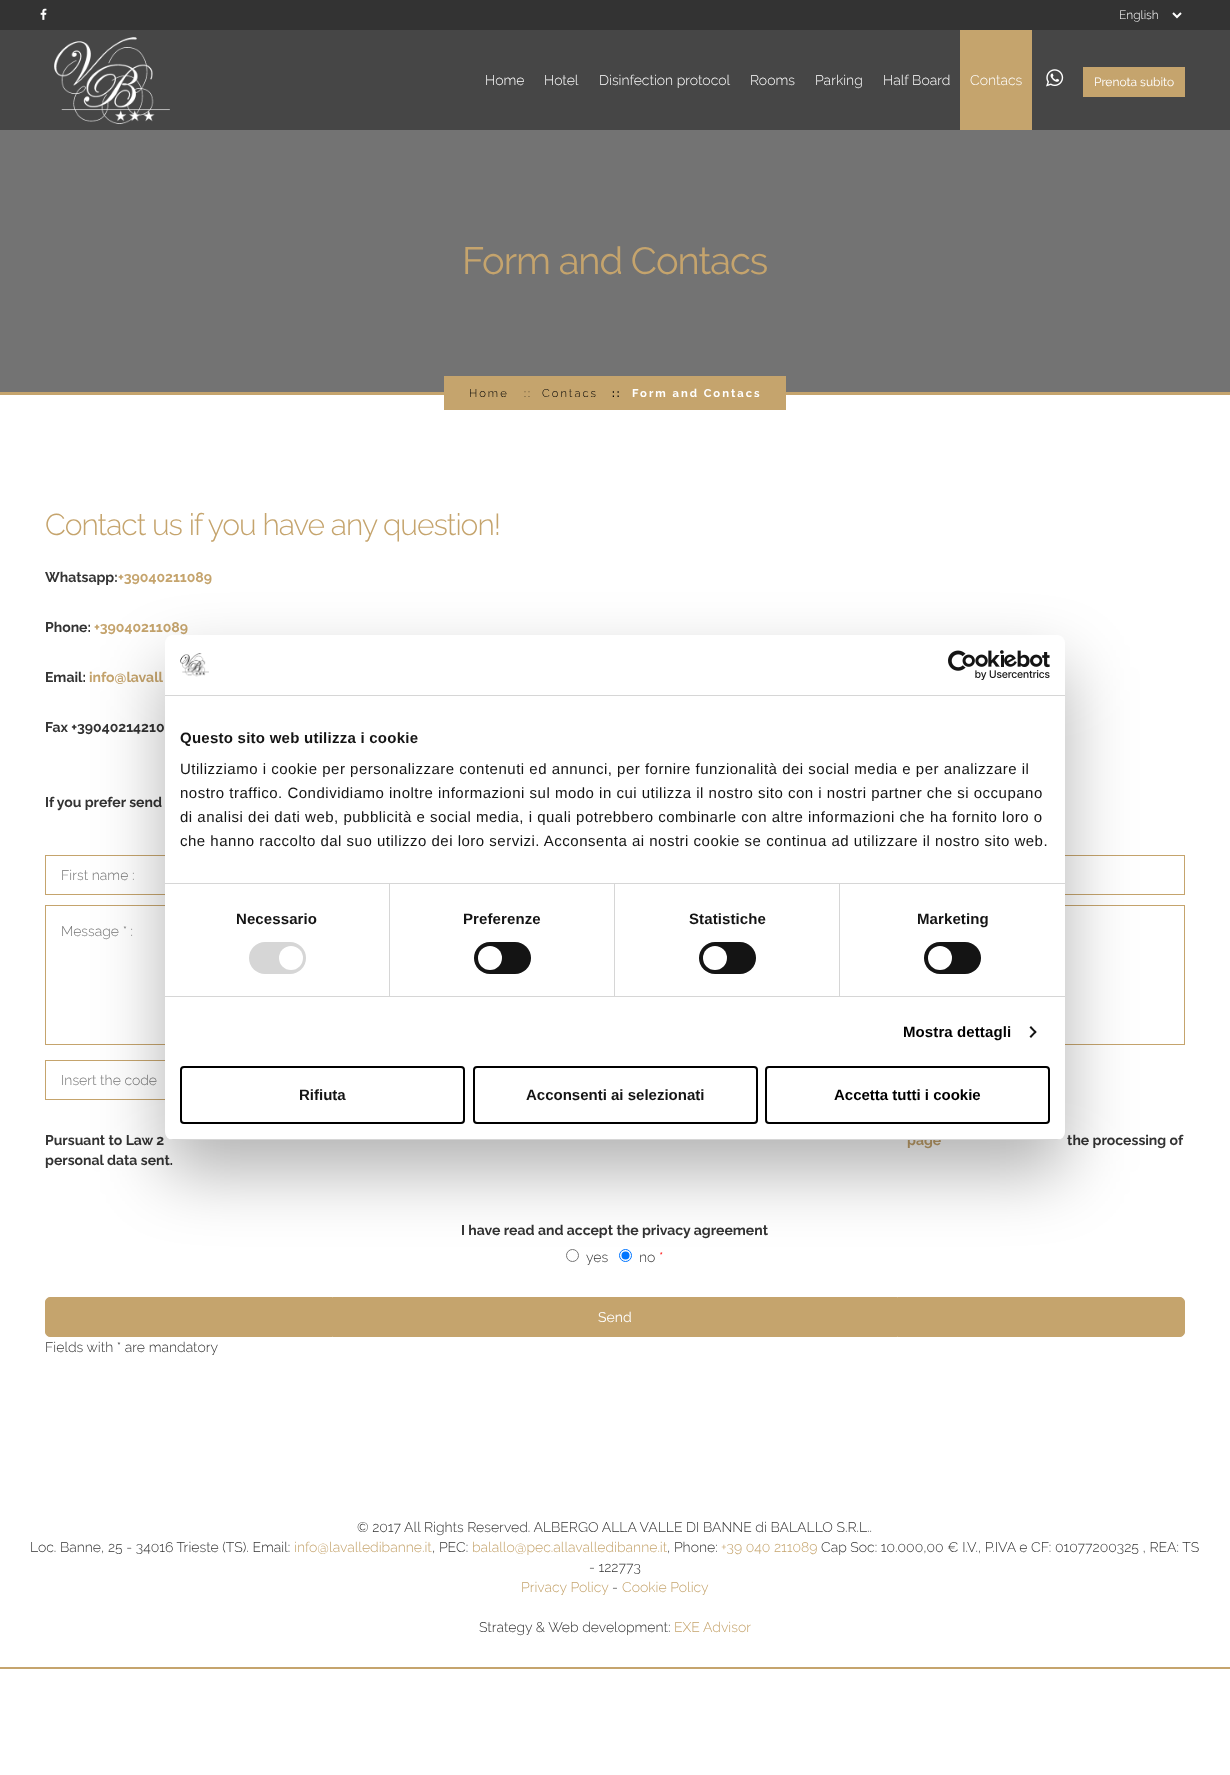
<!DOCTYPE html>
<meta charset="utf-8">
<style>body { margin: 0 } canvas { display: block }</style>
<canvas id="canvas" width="1230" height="1775"></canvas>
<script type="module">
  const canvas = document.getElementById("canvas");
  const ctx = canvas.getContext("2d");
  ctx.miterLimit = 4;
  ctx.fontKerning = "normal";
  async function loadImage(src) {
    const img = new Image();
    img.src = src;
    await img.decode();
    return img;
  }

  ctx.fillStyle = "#ffffff";
  ctx.fillRect(0, 0, 1230, 1775);
  ctx.fillStyle = "#333333";
  ctx.fillRect(0, 0, 1230, 30);
  ctx.drawImage(await loadImage("img1.png"), 40, 8, 7, 12);
  ctx.beginPath();
  ctx.moveTo(1173, 13);
  ctx.lineTo(1177, 17);
  ctx.lineTo(1181, 13);
  ctx.strokeStyle = "#ffffff";
  ctx.lineWidth = 2;
  ctx.stroke();
  ctx.font = "300 12px Raleway";
  ctx.fillStyle = "#ffffff";
  ctx.fillText("English", 1119, 19);
  ctx.fillStyle = "#464646";
  ctx.fillRect(0, 30, 1230, 100);
  ctx.drawImage(await loadImage("img2.png"), 54, 37, 116, 87);
  ctx.font = "300 14px Raleway";
  ctx.fillStyle = "#ffffff";
  ctx.fillText("Home", 485, 85);
  ctx.fillText("Hotel", 544, 85);
  ctx.fillText("Disinfection protocol", 599, 85);
  ctx.fillText("Rooms", 750, 85);
  ctx.fillText("Parking", 815, 85);
  ctx.fillText("Half Board", 883, 85);
  ctx.fillStyle = "#c5a46d";
  ctx.fillRect(960, 30, 72, 100);
  ctx.fillStyle = "#ffffff";
  ctx.fillText("Contacs", 970, 85);
  ctx.drawImage(await loadImage("img3.png"), 1046, 69, 18, 18);
  ctx.fillStyle = "#c5a46d";
  ctx.fillRect(1083, 67, 102, 30);
  ctx.font = "12px Raleway";
  ctx.fillStyle = "#ffffff";
  ctx.fillText("Prenota subito", 1094, 86);
  ctx.fillStyle = "#c5a46d";
  ctx.fillRect(0, 392, 1230, 3);
  ctx.fillStyle = "#737373";
  ctx.fillRect(0, 130, 1230, 262);
  ctx.letterSpacing = "-1px";
  ctx.font = "38px Raleway";
  ctx.fillStyle = "#c5a46d";
  ctx.fillText("Form and Contacs", 462, 274);
  ctx.fillRect(444, 376, 342, 34);
  ctx.letterSpacing = "2px";
  ctx.font = "300 11.25px Raleway";
  ctx.fillStyle = "#000000";
  ctx.fillText("Home", 469, 397);
  ctx.fillText("::", 524, 397);
  ctx.fillText("Contacs", 542, 397);
  ctx.font = "bold 11.25px Raleway";
  ctx.fillText("::", 612, 397);
  ctx.fillStyle = "#ffffff";
  ctx.fillText("Form and Contacs", 632, 397);
  ctx.letterSpacing = "-1px";
  ctx.font = "300 30px Raleway";
  ctx.fillStyle = "#c5a46d";
  ctx.fillText("Contact us if you have any question!", 45, 535);
  ctx.letterSpacing = "0px";
  ctx.font = "bold 14px Raleway";
  ctx.fillStyle = "#333333";
  ctx.fillText("Whatsapp:", 45, 582);
  ctx.fillStyle = "#c5a46d";
  ctx.fillText("+39040211089", 118, 582);
  ctx.fillStyle = "#333333";
  ctx.fillText("Phone:", 45, 632);
  ctx.fillStyle = "#c5a46d";
  ctx.fillText("+39040211089", 94, 632);
  ctx.fillStyle = "#333333";
  ctx.fillText("Email:", 45, 682);
  ctx.fillStyle = "#c5a46d";
  ctx.fillText("info@lavall", 89, 682);
  ctx.fillStyle = "#333333";
  ctx.fillText("Fax +39040214210", 45, 732);
  ctx.fillText("If you prefer send", 45, 807);
  ctx.strokeStyle = "#c5a46d";
  ctx.lineWidth = 1;
  ctx.strokeRect(45.5, 855.5, 359, 39);
  ctx.font = "300 14px Raleway";
  ctx.fillStyle = "#757575";
  ctx.fillText("First name :", 61, 880);
  ctx.strokeRect(825.5, 855.5, 359, 39);
  ctx.strokeRect(45.5, 905.5, 1139, 139);
  ctx.fillText("Message * :", 61, 936);
  ctx.strokeRect(45.5, 1060.5, 379, 39);
  ctx.fillText("Insert the code", 61, 1085);
  ctx.font = "bold 14px Raleway";
  ctx.fillStyle = "#333333";
  ctx.fillText("Pursuant to Law 2", 45, 1145);
  ctx.fillStyle = "#c5a46d";
  ctx.fillText("page", 907, 1145);
  ctx.fillStyle = "#333333";
  ctx.fillText("the processing of", 1067, 1145);
  ctx.fillText("personal data sent.", 45, 1165);
  ctx.fillText("I have read and accept the privacy agreement", 461, 1235);
  ctx.beginPath();
  ctx.arc(572.5, 1255.5, 6, 0, Math.PI * 2);
  ctx.strokeStyle = "#767676";
  ctx.stroke();
  ctx.beginPath();
  ctx.arc(625.5, 1255.5, 6, 0, Math.PI * 2);
  ctx.strokeStyle = "#0075ff";
  ctx.stroke();
  ctx.fillStyle = "#0075ff";
  ctx.beginPath();
  ctx.arc(625.5, 1255.5, 4, 0, Math.PI * 2);
  ctx.fill();
  ctx.font = "300 14px Raleway";
  ctx.fillStyle = "#ff0000";
  ctx.fillText("*", 659, 1262);
  ctx.fillStyle = "#333333";
  ctx.fillText("yes", 586, 1262);
  ctx.fillText("no", 639, 1262);
  ctx.fillStyle = "#c5a46d";
  ctx.beginPath();
  ctx.roundRect(45.5, 1297.5, 1139, 39, 4.5);
  ctx.fill();
  ctx.strokeStyle = "#c5a46d";
  ctx.stroke();
  ctx.font = "14px Raleway";
  ctx.fillStyle = "#ffffff";
  ctx.fillText("Send", 598, 1322);
  ctx.font = "300 14px Raleway";
  ctx.fillStyle = "#333333";
  ctx.fillText("Fields with * are mandatory", 45, 1352);
  ctx.fillStyle = "rgba(0, 0, 0, 0.3)";
  ctx.filter = "blur(34px)";
  ctx.beginPath();
  ctx.roundRect(165, 667, 900, 505, 8);
  ctx.fill();
  ctx.filter = "none";
  ctx.fillStyle = "#ffffff";
  ctx.beginPath();
  ctx.roundRect(165, 635, 900, 505, 8);
  ctx.fill();
  ctx.fillStyle = "#d6d6d6";
  ctx.fillRect(165, 695, 900, 1);
  ctx.drawImage(await loadImage("img4.png"), 180, 653, 29, 24);
  ctx.drawImage(await loadImage("img5.png"), 948, 650, 102, 30);
  ctx.fillRect(165, 883, 900, 1);
  ctx.letterSpacing = "0.25px";
  ctx.font = "bold 15px Liberation Sans";
  ctx.fillStyle = "#141414";
  ctx.fillText("Questo sito web utilizza i cookie", 180, 743);
  ctx.letterSpacing = "0.5px";
  ctx.font = "15px Liberation Sans";
  ctx.fillText("Utilizziamo i cookie per personalizzare contenuti ed annunci, per fornire funzionalità dei social media e per analizzare il", 180, 774);
  ctx.fillText("nostro traffico. Condividiamo inoltre informazioni sul modo in cui utilizza il nostro sito con i nostri partner che si occupano", 180, 798);
  ctx.fillText("di analisi dei dati web, pubblicità e social media, i quali potrebbero combinarle con altre informazioni che ha fornito loro o", 180, 822);
  ctx.fillText("che hanno raccolto dal suo utilizzo dei loro servizi. Acconsenta ai nostri cookie se continua ad utilizzare il nostro sito web.", 180, 846);
  ctx.fillStyle = "#d6d6d6";
  ctx.fillRect(165, 996, 900, 1);
  ctx.fillRect(389, 884, 1, 112);
  ctx.letterSpacing = "0.1px";
  ctx.font = "bold 15px Liberation Sans";
  ctx.fillStyle = "#141414";
  ctx.fillText("Necessario", 236, 924);
  ctx.fillStyle = "#d6d6d6";
  ctx.beginPath();
  ctx.roundRect(249, 942, 57, 32, 16);
  ctx.fill();
  ctx.fillStyle = "#ffffff";
  ctx.beginPath();
  ctx.arc(291, 958, 12, 0, Math.PI * 2);
  ctx.fill();
  ctx.fillStyle = "#d6d6d6";
  ctx.fillRect(614, 884, 1, 112);
  ctx.fillStyle = "#141414";
  ctx.fillText("Preferenze", 463, 924);
  ctx.beginPath();
  ctx.roundRect(474, 942, 57, 32, 16);
  ctx.fill();
  ctx.fillStyle = "#ffffff";
  ctx.beginPath();
  ctx.arc(490, 958, 12, 0, Math.PI * 2);
  ctx.fill();
  ctx.fillStyle = "#d6d6d6";
  ctx.fillRect(839, 884, 1, 112);
  ctx.fillStyle = "#141414";
  ctx.fillText("Statistiche", 689, 924);
  ctx.beginPath();
  ctx.roundRect(699, 942, 57, 32, 16);
  ctx.fill();
  ctx.fillStyle = "#ffffff";
  ctx.beginPath();
  ctx.arc(715, 958, 12, 0, Math.PI * 2);
  ctx.fill();
  ctx.fillStyle = "#141414";
  ctx.fillText("Marketing", 917, 924);
  ctx.beginPath();
  ctx.roundRect(924, 942, 57, 32, 16);
  ctx.fill();
  ctx.fillStyle = "#ffffff";
  ctx.beginPath();
  ctx.arc(940, 958, 12, 0, Math.PI * 2);
  ctx.fill();
  ctx.fillStyle = "#000000";
  ctx.fillText("Mostra dettagli", 903, 1037);
  ctx.fillStyle = "#141414";
  ctx.beginPath();
  ctx.moveTo(1031, 1026);
  ctx.lineTo(1036.5, 1032);
  ctx.lineTo(1035.5, 1033.5);
  ctx.lineTo(1029.5, 1027.5);
  ctx.closePath();
  ctx.fill();
  ctx.beginPath();
  ctx.moveTo(1035.5, 1030.5);
  ctx.lineTo(1036.5, 1032);
  ctx.lineTo(1031, 1038);
  ctx.lineTo(1029.5, 1036.5);
  ctx.closePath();
  ctx.fill();
  ctx.save();
  ctx.beginPath();
  ctx.roundRect(165, 635, 900, 505, 8);
  ctx.clip();
  ctx.fillStyle = "#d6d6d6";
  ctx.fillRect(165, 1139, 900, 1);
  ctx.restore();
  ctx.beginPath();
  ctx.roundRect(181, 1067, 283, 56, 3);
  ctx.strokeStyle = "#000000";
  ctx.lineWidth = 2;
  ctx.stroke();
  ctx.letterSpacing = "0px";
  ctx.fillText("Rifiuta", 299, 1100);
  ctx.beginPath();
  ctx.roundRect(474, 1067, 283, 56, 3);
  ctx.stroke();
  ctx.fillText("Acconsenti ai selezionati", 526, 1100);
  ctx.beginPath();
  ctx.roundRect(766, 1067, 283, 56, 3);
  ctx.stroke();
  ctx.fillStyle = "#000000";
  ctx.fillText("Accetta tutti i cookie", 834, 1100);
  ctx.fillStyle = "#c5a46d";
  ctx.fillRect(0, 1667, 1230, 2);
  ctx.font = "300 14px Raleway";
  ctx.fillStyle = "#333333";
  ctx.fillText("© 2017 All Rights Reserved. ALBERGO ALLA VALLE DI BANNE di BALALLO S.R.L..", 357, 1532);
  ctx.fillText("Loc. Banne, 25 - 34016 Trieste (TS). Email:", 30, 1552);
  ctx.fillStyle = "#c5a46d";
  ctx.fillText("info@lavalledibanne.it", 294, 1552);
  ctx.fillStyle = "#333333";
  ctx.fillText(", PEC:", 432, 1552);
  ctx.fillStyle = "#c5a46d";
  ctx.fillText("balallo@pec.allavalledibanne.it", 472, 1552);
  ctx.fillStyle = "#333333";
  ctx.fillText(", Phone:", 667, 1552);
  ctx.fillStyle = "#c5a46d";
  ctx.fillText("+39 040 211089", 721, 1552);
  ctx.fillStyle = "#333333";
  ctx.fillText("Cap Soc: 10.000,00 € I.V., P.IVA e CF: 01077200325 , REA: TS", 821, 1552);
  ctx.fillText("- 122773", 589, 1572);
  ctx.fillStyle = "#c5a46d";
  ctx.fillText("Privacy Policy", 521, 1592);
  ctx.fillStyle = "#333333";
  ctx.fillText("-", 612, 1592);
  ctx.fillStyle = "#c5a46d";
  ctx.fillText("Cookie Policy", 622, 1592);
  ctx.fillStyle = "#333333";
  ctx.fillText("Strategy & Web development:", 479, 1632);
  ctx.fillStyle = "#c5a46d";
  ctx.fillText("EXE Advisor", 674, 1632);
</script>
